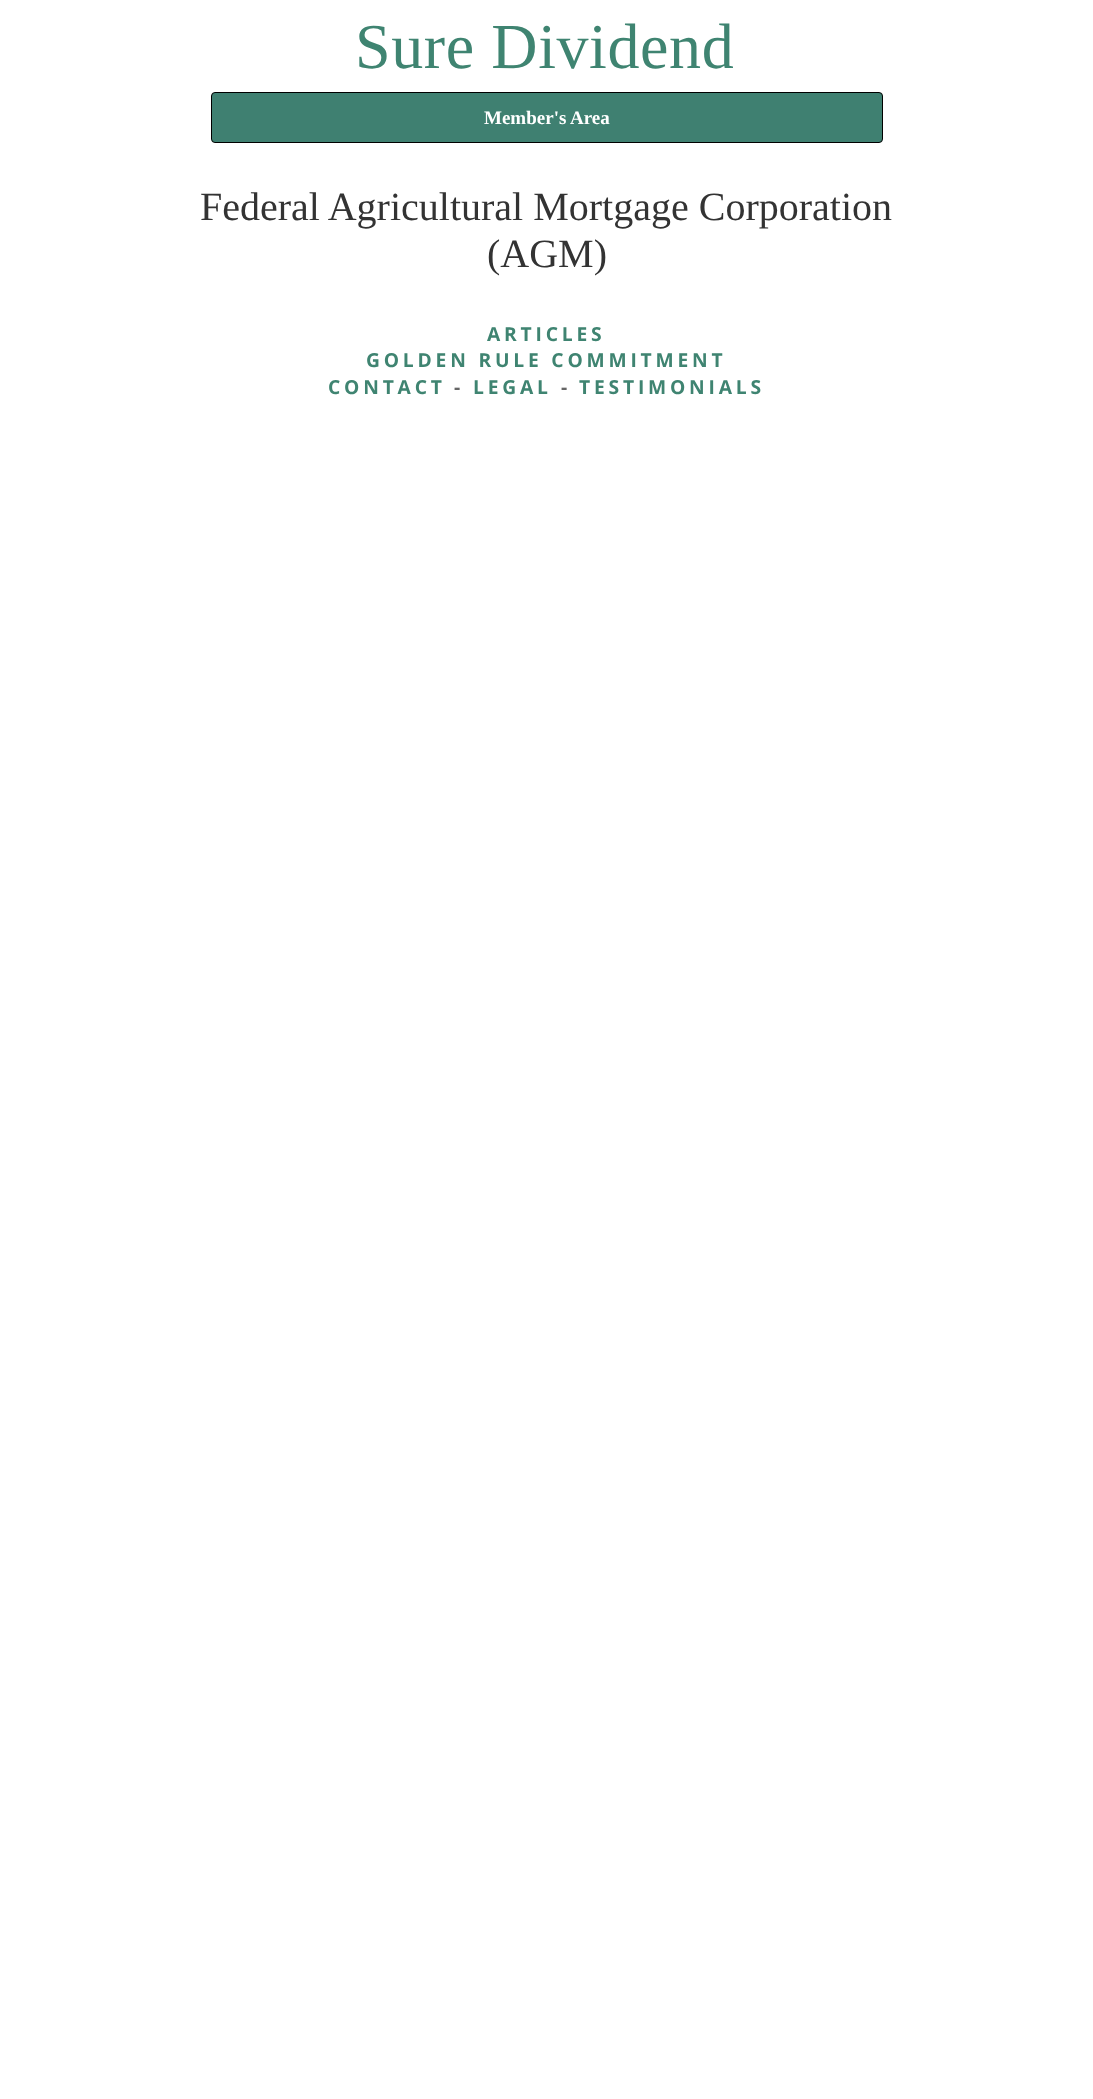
<!DOCTYPE html>
<meta charset="utf-8">
<style>body { margin: 0 } canvas { display: block }</style>
<canvas id="canvas" width="1093" height="2099"></canvas>
<script type="module">
  const canvas = document.getElementById("canvas");
  const ctx = canvas.getContext("2d");
  ctx.miterLimit = 4;
  ctx.fontKerning = "normal";

  ctx.fillStyle = "#ffffff";
  ctx.fillRect(0, 0, 1093, 2099);
  ctx.letterSpacing = "0.6px";
  ctx.font = "64px Liberation Serif";
  ctx.fillStyle = "#3f8471";
  ctx.fillText("Sure Dividend", 355, 68);
  ctx.fillStyle = "#3f8071";
  ctx.beginPath();
  ctx.roundRect(211.5, 92.5, 671, 50, 3.5);
  ctx.fill();
  ctx.strokeStyle = "#000000";
  ctx.stroke();
  ctx.letterSpacing = "0px";
  ctx.font = "bold 19px Liberation Serif";
  ctx.fillStyle = "#ffffff";
  ctx.fillText("Member's Area", 484, 124);
  ctx.font = "40px Liberation Serif";
  ctx.fillStyle = "#333333";
  ctx.fillText("Federal Agricultural Mortgage Corporation", 200, 220);
  ctx.fillText("(AGM)", 487, 267);
  ctx.letterSpacing = "3.8px";
  ctx.font = "bold 19.25px Open Sans";
  ctx.fillStyle = "#3f8471";
  ctx.fillText("ARTICLES", 487, 341);
  ctx.fillText("GOLDEN RULE COMMITMENT", 366, 367);
  ctx.fillText("CONTACT", 328, 394);
  ctx.fillStyle = "#666666";
  ctx.fillText("-", 454, 394);
  ctx.fillStyle = "#3f8471";
  ctx.fillText("LEGAL", 473, 394);
  ctx.fillStyle = "#666666";
  ctx.fillText("-", 561, 394);
  ctx.fillStyle = "#3f8471";
  ctx.fillText("TESTIMONIALS", 579, 394);
</script>
